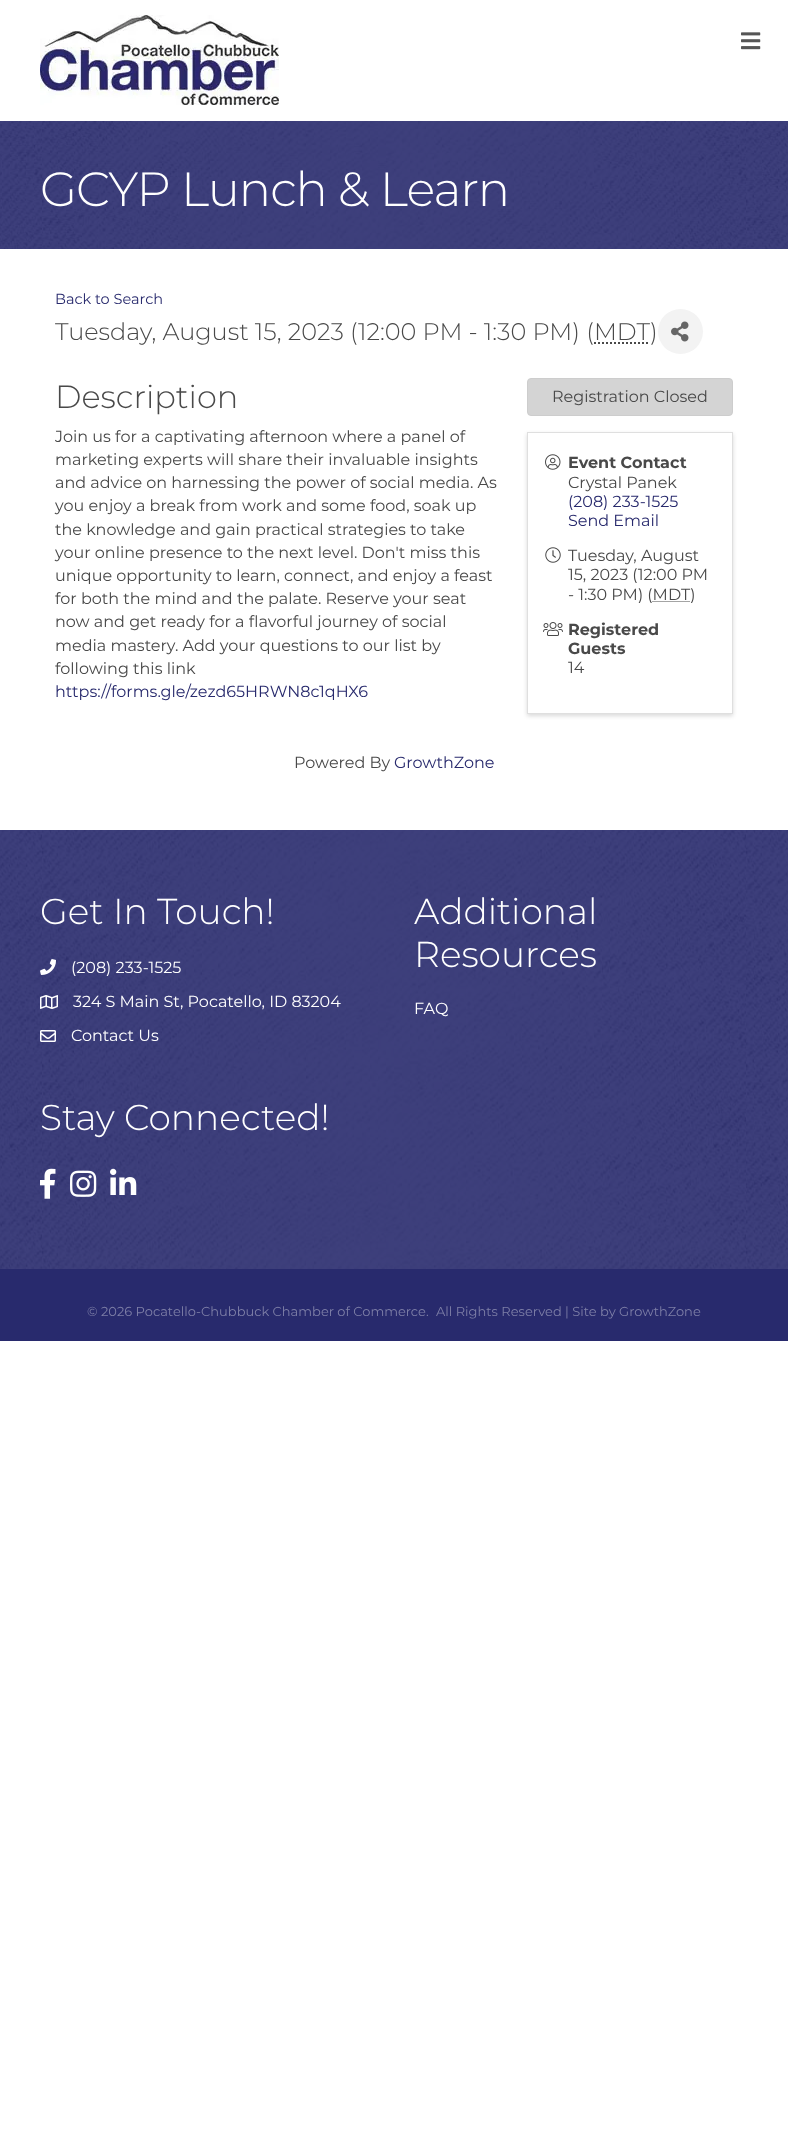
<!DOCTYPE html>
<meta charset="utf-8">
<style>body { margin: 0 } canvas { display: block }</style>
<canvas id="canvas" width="788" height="2154"></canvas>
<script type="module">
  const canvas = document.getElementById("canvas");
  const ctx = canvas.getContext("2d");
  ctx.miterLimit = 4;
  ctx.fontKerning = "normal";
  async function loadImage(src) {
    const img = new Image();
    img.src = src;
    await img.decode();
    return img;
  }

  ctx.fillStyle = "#ffffff";
  ctx.fillRect(0, 0, 788, 2154);
  ctx.drawImage(await loadImage("img1.png"), 40, 15, 239, 90);
  ctx.drawImage(await loadImage("img2.png"), 741, 32, 20, 18);
  ctx.drawImage(await loadImage("img3.png"), 0, 121, 788, 128);
  ctx.letterSpacing = "-1px";
  ctx.font = "300 48px Montserrat";
  ctx.fillText("GCYP Lunch & Learn", 40, 206);
  ctx.letterSpacing = "0px";
  ctx.font = "14.5px Montserrat";
  ctx.fillStyle = "#282a6d";
  ctx.fillText("Back to Search", 55, 304);
  ctx.font = "300 24px Montserrat";
  ctx.fillStyle = "#494949";
  ctx.fillText("Tuesday, August 15, 2023 (12:00 PM - 1:30 PM) (MDT)", 55, 340);
  ctx.beginPath();
  ctx.moveTo(594, 343);
  ctx.lineTo(650, 343);
  ctx.strokeStyle = "#494949";
  ctx.lineWidth = 2;
  ctx.setLineDash([2, 2]);
  ctx.stroke();
  ctx.fillStyle = "#f3f3f3";
  ctx.beginPath();
  ctx.arc(680.5, 331.5, 22.5, 0, Math.PI * 2);
  ctx.fill();
  ctx.drawImage(await loadImage("img4.png"), 671, 321, 18, 21);
  ctx.font = "300 32px Montserrat";
  ctx.fillStyle = "#494949";
  ctx.fillText("Description", 55, 408);
  ctx.font = "16px Montserrat";
  ctx.fillText("Join us for a captivating afternoon where a panel of", 55, 442);
  ctx.fillText("marketing experts will share their invaluable insights", 55, 465);
  ctx.fillText("and advice on harnessing the power of social media. As", 55, 488);
  ctx.fillText("you enjoy a break from work and some food, soak up", 55, 511);
  ctx.fillText("the knowledge and gain practical strategies to take", 55, 535);
  ctx.fillText("your online presence to the next level. Don't miss this", 55, 558);
  ctx.fillText("unique opportunity to learn, connect, and enjoy a feast", 55, 581);
  ctx.fillText("for both the mind and the palate. Reserve your seat", 55, 604);
  ctx.fillText("now and get ready for a flavorful journey of social", 55, 627);
  ctx.fillText("media mastery. Add your questions to our list by", 55, 651);
  ctx.fillText("following this link", 55, 674);
  ctx.fillStyle = "#282a6d";
  ctx.fillText("https://forms.gle/zezd65HRWN8c1qHX6", 55, 697);
  ctx.fillStyle = "#d4d4d4";
  ctx.beginPath();
  ctx.roundRect(527.5, 378.5, 205, 37, 3.5);
  ctx.fill();
  ctx.strokeStyle = "#cdcdcd";
  ctx.lineWidth = 1;
  ctx.setLineDash([]);
  ctx.stroke();
  ctx.fillStyle = "#494949";
  ctx.fillText("Registration Closed", 552, 402);
  ctx.save();
  ctx.beginPath();
  ctx.moveTo(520, 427);
  ctx.lineTo(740, 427);
  ctx.lineTo(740, 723);
  ctx.lineTo(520, 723);
  ctx.closePath();
  ctx.moveTo(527, 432);
  ctx.lineTo(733, 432);
  ctx.lineTo(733, 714);
  ctx.lineTo(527, 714);
  ctx.closePath();
  ctx.clip("evenodd");
  ctx.fillStyle = "rgba(0, 0, 0, 0.15)";
  ctx.filter = "blur(2px)";
  ctx.beginPath();
  ctx.rect(527, 434, 206, 282);
  ctx.fill();
  ctx.filter = "none";
  ctx.restore();
  ctx.strokeStyle = "#dfdfdf";
  ctx.strokeRect(527.5, 432.5, 205, 281);
  ctx.drawImage(await loadImage("img5.png"), 545, 454, 16, 16);
  ctx.font = "bold 16px Montserrat";
  ctx.fillText("Event Contact", 568, 468);
  ctx.font = "16px Montserrat";
  ctx.fillText("Crystal Panek", 568, 488);
  ctx.fillStyle = "#282a6d";
  ctx.fillText("(208) 233-1525", 568, 507);
  ctx.fillText("Send Email", 568, 526);
  ctx.drawImage(await loadImage("img6.png"), 545, 547, 16, 16);
  ctx.fillStyle = "#494949";
  ctx.fillText("Tuesday, August", 568, 561);
  ctx.fillText("15, 2023 (12:00 PM", 568, 580);
  ctx.fillText("- 1:30 PM) (MDT)", 568, 600);
  ctx.beginPath();
  ctx.moveTo(652.5, 601.5);
  ctx.lineTo(690, 601.5);
  ctx.strokeStyle = "#494949";
  ctx.setLineDash([1, 1]);
  ctx.stroke();
  ctx.drawImage(await loadImage("img7.png"), 543, 622, 20, 14);
  ctx.font = "bold 16px Montserrat";
  ctx.fillText("Registered", 568, 635);
  ctx.fillText("Guests", 568, 654);
  ctx.font = "16px Montserrat";
  ctx.fillText("14", 568, 673);
  ctx.fillText("Powered By", 294, 768);
  ctx.fillStyle = "#282a6d";
  ctx.fillText("GrowthZone", 394, 768);
  ctx.drawImage(await loadImage("img8.png"), 0, 830, 788, 439);
  ctx.font = "300 36px Montserrat";
  ctx.fillStyle = "#ffffff";
  ctx.fillText("Get In Touch!", 40, 924);
  ctx.drawImage(await loadImage("img9.png"), 40, 959, 16, 16);
  ctx.font = "16px Montserrat";
  ctx.fillText("(208) 233-1525", 71, 973);
  ctx.drawImage(await loadImage("img10.png"), 40, 995, 18, 14);
  ctx.fillText("324 S Main St, Pocatello, ID 83204", 73, 1007);
  ctx.drawImage(await loadImage("img11.png"), 40, 1030, 16, 12);
  ctx.fillText("Contact Us", 71, 1041);
  ctx.font = "300 36px Montserrat";
  ctx.fillText("Additional", 414, 924);
  ctx.fillText("Resources", 414, 967);
  ctx.font = "16px Montserrat";
  ctx.fillText("FAQ", 414, 1014);
  ctx.font = "300 36px Montserrat";
  ctx.fillText("Stay Connected!", 40, 1130);
  ctx.drawImage(await loadImage("img12.png"), 40, 1168, 16, 31);
  ctx.drawImage(await loadImage("img13.png"), 70, 1170, 27, 27);
  ctx.drawImage(await loadImage("img14.png"), 110, 1168, 27, 27);
  ctx.fillStyle = "#282a6d";
  ctx.fillRect(0, 1269, 788, 72);
  ctx.font = "13px Montserrat";
  ctx.fillStyle = "#7e7fa7";
  ctx.fillText("© 2026 Pocatello-Chubbuck Chamber of Commerce.", 87, 1316);
  ctx.fillText("All Rights Reserved | Site by GrowthZone", 436, 1316);
</script>
